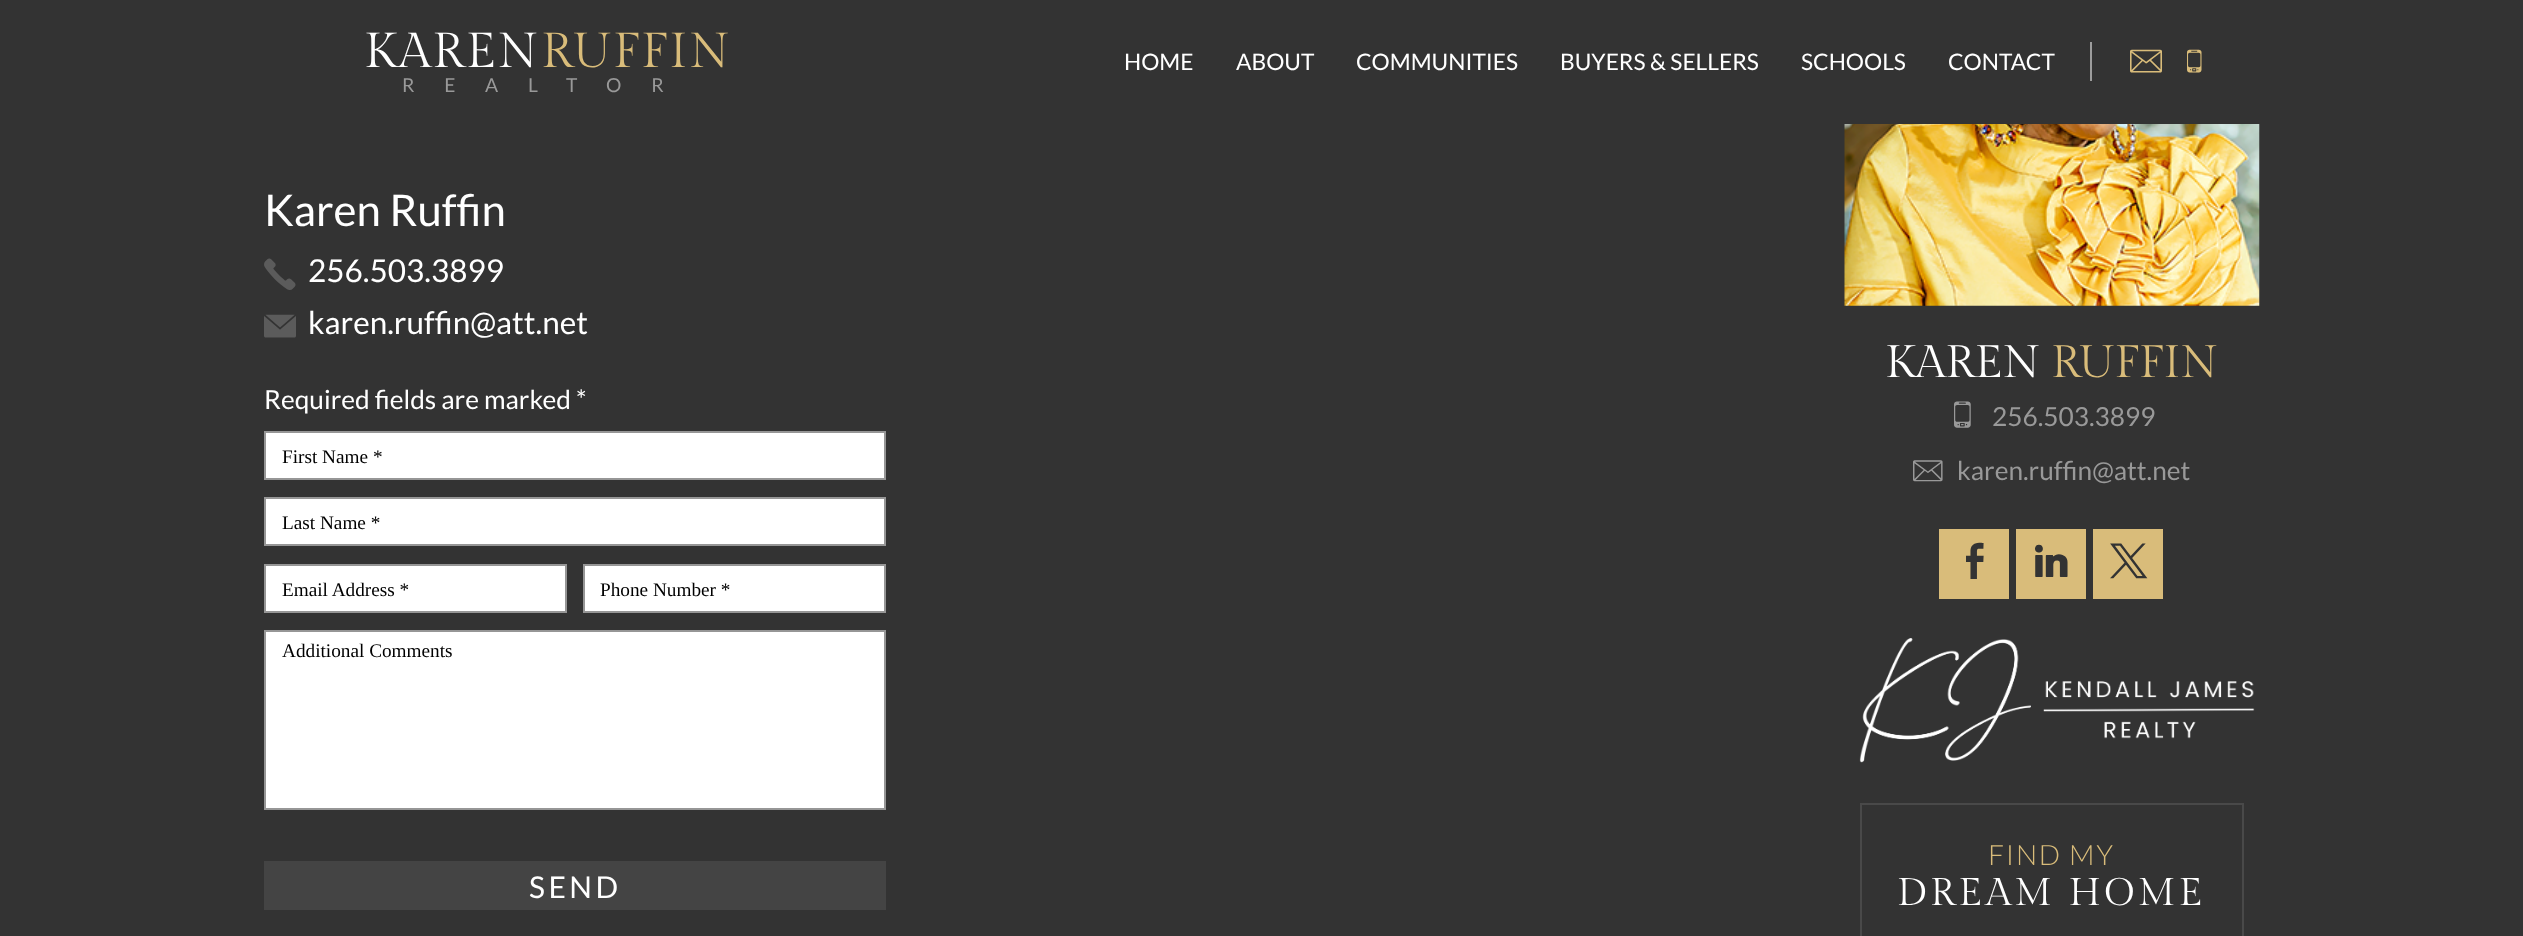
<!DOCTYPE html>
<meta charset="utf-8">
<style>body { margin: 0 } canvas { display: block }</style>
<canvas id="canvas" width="2523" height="936"></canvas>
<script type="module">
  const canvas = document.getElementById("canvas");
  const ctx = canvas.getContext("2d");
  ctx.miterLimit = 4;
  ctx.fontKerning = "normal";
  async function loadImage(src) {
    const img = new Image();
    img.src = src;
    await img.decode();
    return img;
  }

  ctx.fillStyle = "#333333";
  ctx.fillRect(0, 0, 2523, 936);
  ctx.letterSpacing = "1.75px";
  ctx.font = "49px Gilda Display";
  ctx.fillStyle = "#ffffff";
  ctx.fillText("KAREN", 364, 67);
  ctx.fillStyle = "#d9bc7a";
  ctx.fillText("RUFFIN", 541, 67);
  ctx.letterSpacing = "29.75px";
  ctx.font = "19.25px Lato";
  ctx.fillStyle = "#999999";
  ctx.fillText("REALTOR", 402, 92);
  ctx.letterSpacing = "0px";
  ctx.font = "22.75px Lato";
  ctx.fillStyle = "#ffffff";
  ctx.fillText("HOME", 1124, 70);
  ctx.fillText("ABOUT", 1236, 70);
  ctx.fillText("COMMUNITIES", 1356, 70);
  ctx.fillText("BUYERS & SELLERS", 1560, 70);
  ctx.fillText("SCHOOLS", 1801, 70);
  ctx.fillText("CONTACT", 1948, 70);
  ctx.fillStyle = "#9c9c9c";
  ctx.fillRect(2090, 42, 2, 39);
  ctx.font = "22.75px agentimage";
  ctx.fillStyle = "#d9bc7a";
  ctx.fillText("򰄠", 2130, 71);
  ctx.fillText("򰁇", 2187, 71);
  ctx.font = "43.75px Lato";
  ctx.fillStyle = "#ffffff";
  ctx.fillText("Karen Ruffin", 264, 226);
  ctx.font = "31.5px agentimage";
  ctx.fillStyle = "#5b5b5b";
  ctx.fillText("򰁩", 264, 288);
  ctx.font = "31.5px Lato";
  ctx.fillStyle = "#ffffff";
  ctx.fillText("256.503.3899", 308, 282);
  ctx.font = "22.75px agentimage";
  ctx.fillStyle = "#5b5b5b";
  ctx.fillText("򰄡", 264, 336);
  ctx.font = "31.5px Lato";
  ctx.fillStyle = "#ffffff";
  ctx.fillText("karen.ruffin@att.net", 308, 334);
  ctx.font = "26.25px Lato";
  ctx.fillText("Required fields are marked *", 264, 409);
  ctx.beginPath();
  ctx.rect(265, 432, 620, 47);
  ctx.fill();
  ctx.strokeStyle = "#969696";
  ctx.lineWidth = 2;
  ctx.stroke();
  ctx.font = "19.25px Liberation Serif";
  ctx.fillStyle = "#000000";
  ctx.fillText("First Name *", 282, 463);
  ctx.fillStyle = "#ffffff";
  ctx.beginPath();
  ctx.rect(265, 498, 620, 47);
  ctx.fill();
  ctx.stroke();
  ctx.fillStyle = "#000000";
  ctx.fillText("Last Name *", 282, 529);
  ctx.fillStyle = "#ffffff";
  ctx.beginPath();
  ctx.rect(265, 565, 301, 47);
  ctx.fill();
  ctx.stroke();
  ctx.fillStyle = "#000000";
  ctx.fillText("Email Address *", 282, 596);
  ctx.fillStyle = "#ffffff";
  ctx.beginPath();
  ctx.rect(584, 565, 301, 47);
  ctx.fill();
  ctx.stroke();
  ctx.fillStyle = "#000000";
  ctx.fillText("Phone Number *", 600, 596);
  ctx.fillStyle = "#ffffff";
  ctx.beginPath();
  ctx.rect(265, 631, 620, 178);
  ctx.fill();
  ctx.stroke();
  ctx.fillStyle = "#000000";
  ctx.fillText("Additional Comments", 282, 657);
  ctx.fillStyle = "#444444";
  ctx.fillRect(264, 861, 622, 49);
  ctx.letterSpacing = "3.5px";
  ctx.font = "30px Lato";
  ctx.fillStyle = "#ffffff";
  ctx.fillText("SEND", 529, 898);
  ctx.drawImage(await loadImage("img1.png"), 1844, 124, 416, 182);
  ctx.letterSpacing = "0px";
  ctx.font = "45.5px Gilda Display";
  ctx.fillText("KAREN", 1885, 377);
  ctx.fillStyle = "#d9bc7a";
  ctx.fillText("RUFFIN", 2051, 377);
  ctx.font = "26.25px agentimage";
  ctx.fillStyle = "#999999";
  ctx.fillText("򰁇", 1954, 426);
  ctx.font = "26.25px Lato";
  ctx.fillText("256.503.3899", 1992, 426);
  ctx.font = "21px agentimage";
  ctx.fillText("򰄠", 1913, 480);
  ctx.font = "26.25px Lato";
  ctx.fillText("karen.ruffin@att.net", 1957, 480);
  ctx.fillStyle = "#d9bc7a";
  ctx.fillRect(1939, 529, 70, 70);
  ctx.font = "43.75px agentimage";
  ctx.fillStyle = "#333333";
  ctx.fillText("򰄔", 1966, 580);
  ctx.fillStyle = "#d9bc7a";
  ctx.fillRect(2016, 529, 70, 70);
  ctx.fillStyle = "#333333";
  ctx.fillText("򰄅", 2035, 580);
  ctx.fillStyle = "#d9bc7a";
  ctx.fillRect(2093, 529, 70, 70);
  ctx.fillStyle = "#333333";
  ctx.fillText("򰄀", 2110, 580);
  ctx.drawImage(await loadImage("img2.png"), 1859, 638, 396, 125);
  ctx.strokeStyle = "#494949";
  ctx.strokeRect(1861, 804, 382, 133);
  ctx.letterSpacing = "1.75px";
  ctx.font = "300 28px Lato";
  ctx.fillStyle = "#d9bc7a";
  ctx.fillText("FIND MY", 1988, 865);
  ctx.letterSpacing = "3.5px";
  ctx.font = "38.5px Gilda Display";
  ctx.fillStyle = "#ffffff";
  ctx.fillText("DREAM HOME", 1897, 905);
</script>
